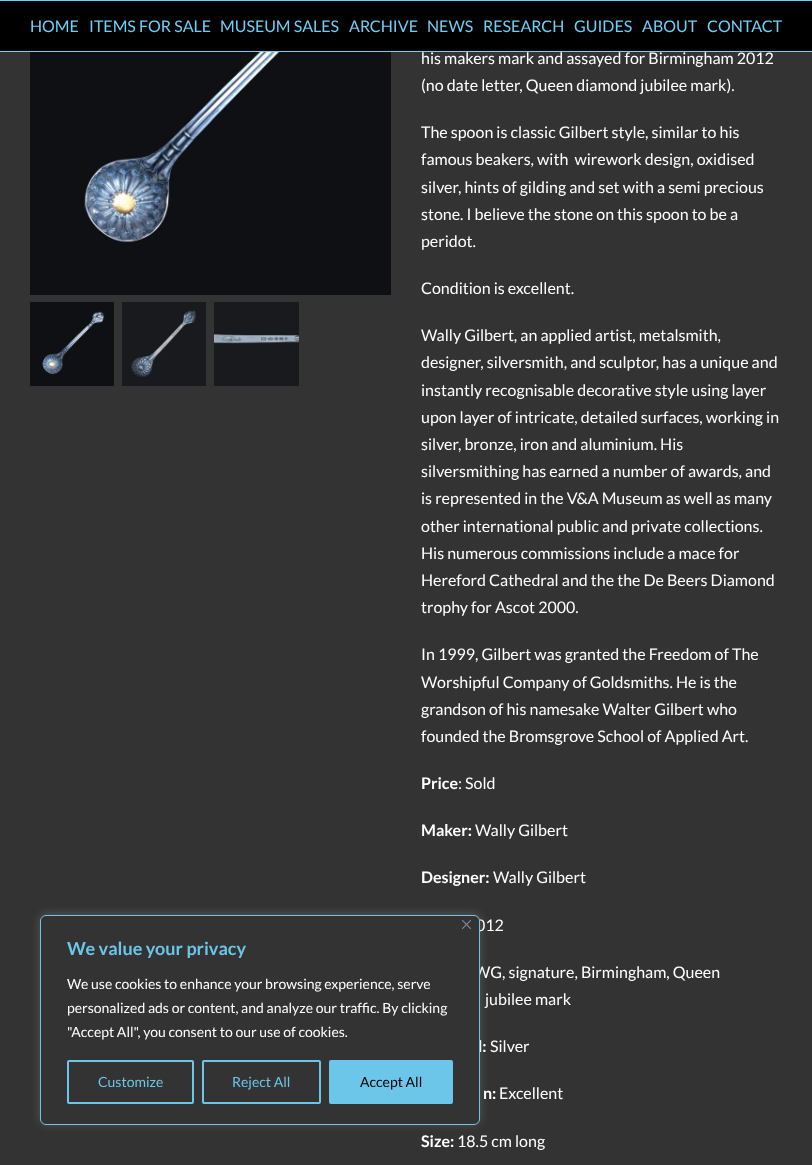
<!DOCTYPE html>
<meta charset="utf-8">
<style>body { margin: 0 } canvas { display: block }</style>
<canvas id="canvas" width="812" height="1165"></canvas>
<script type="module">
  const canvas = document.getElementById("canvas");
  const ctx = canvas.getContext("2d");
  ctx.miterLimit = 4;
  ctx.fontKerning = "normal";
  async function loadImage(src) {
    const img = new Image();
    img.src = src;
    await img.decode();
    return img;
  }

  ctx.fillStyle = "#333333";
  ctx.fillRect(0, 0, 812, 1165);
  ctx.fillStyle = "#000000";
  ctx.fillRect(0, 1, 812, 50);
  ctx.fillStyle = "#6ed0f6";
  ctx.fillRect(0, 0, 812, 1);
  ctx.fillRect(0, 51, 812, 1);
  ctx.font = "16px Lato";
  ctx.fillText("HOME", 30, 32);
  ctx.fillText("ITEMS FOR SALE", 89, 32);
  ctx.fillText("MUSEUM SALES", 220, 32);
  ctx.fillText("ARCHIVE", 349, 32);
  ctx.fillText("NEWS", 427, 32);
  ctx.fillText("RESEARCH", 483, 32);
  ctx.fillText("GUIDES", 574, 32);
  ctx.fillText("ABOUT", 642, 32);
  ctx.fillText("CONTACT", 707, 32);
  ctx.drawImage(await loadImage("img1.png"), 30, 52, 361, 243);
  ctx.drawImage(await loadImage("img2.png"), 30, 302, 84, 84);
  ctx.drawImage(await loadImage("img3.png"), 122, 302, 84, 84);
  ctx.drawImage(await loadImage("img4.png"), 214, 302, 85, 84);
  ctx.fillStyle = "#ffffff";
  ctx.fillText("his makers mark and assayed for Birmingham 2012", 421, 64);
  ctx.fillText("(no date letter, Queen diamond jubilee mark).", 421, 91);
  ctx.fillText("The spoon is classic Gilbert style, similar to his", 421, 138);
  ctx.fillText("famous beakers, with  wirework design, oxidised", 421, 165);
  ctx.fillText("silver, hints of gilding and set with a semi precious", 421, 193);
  ctx.fillText("stone. I believe the stone on this spoon to be a", 421, 220);
  ctx.fillText("peridot.", 421, 247);
  ctx.fillText("Condition is excellent.", 421, 294);
  ctx.fillText("Wally Gilbert, an applied artist, metalsmith,", 421, 341);
  ctx.fillText("designer, silversmith, and sculptor, has a unique and", 421, 368);
  ctx.fillText("instantly recognisable decorative style using layer", 421, 396);
  ctx.fillText("upon layer of intricate, detailed surfaces, working in", 421, 423);
  ctx.fillText("silver, bronze, iron and aluminium. His", 421, 450);
  ctx.fillText("silversmithing has earned a number of awards, and", 421, 477);
  ctx.fillText("is represented in the V&A Museum as well as many", 421, 504);
  ctx.fillText("other international public and private collections.", 421, 532);
  ctx.fillText("His numerous commissions include a mace for", 421, 559);
  ctx.fillText("Hereford Cathedral and the the De Beers Diamond", 421, 586);
  ctx.fillText("trophy for Ascot 2000.", 421, 613);
  ctx.fillText("In 1999, Gilbert was granted the Freedom of The", 421, 660);
  ctx.fillText("Worshipful Company of Goldsmiths. He is the", 421, 688);
  ctx.fillText("grandson of his namesake Walter Gilbert who", 421, 715);
  ctx.fillText("founded the Bromsgrove School of Applied Art.", 421, 742);
  ctx.font = "bold 16px Lato";
  ctx.fillText("Price", 421, 789);
  ctx.font = "16px Lato";
  ctx.fillText(": Sold", 458, 789);
  ctx.font = "bold 16px Lato";
  ctx.fillText("Maker:", 421, 836);
  ctx.font = "16px Lato";
  ctx.fillText("Wally Gilbert", 475, 836);
  ctx.font = "bold 16px Lato";
  ctx.fillText("Designer:", 421, 883);
  ctx.font = "16px Lato";
  ctx.fillText("Wally Gilbert", 493, 883);
  ctx.fillText("012", 476, 931);
  ctx.fillText("WG, signature, Birmingham, Queen", 474, 978);
  ctx.fillText("jubilee mark", 485, 1005);
  ctx.font = "bold 16px Lato";
  ctx.fillText("l:", 478, 1052);
  ctx.font = "16px Lato";
  ctx.fillText("Silver", 490, 1052);
  ctx.font = "bold 16px Lato";
  ctx.fillText("n:", 483, 1099);
  ctx.font = "16px Lato";
  ctx.fillText("Excellent", 499, 1099);
  ctx.font = "bold 16px Lato";
  ctx.fillText("Size:", 421, 1147);
  ctx.font = "16px Lato";
  ctx.fillText("18.5 cm long", 457, 1147);
  ctx.fillStyle = "rgba(172, 171, 171, 0.3)";
  ctx.filter = "blur(5px)";
  ctx.beginPath();
  ctx.roundRect(40, 914, 440, 210, 6);
  ctx.fill();
  ctx.filter = "none";
  ctx.fillStyle = "#333333";
  ctx.beginPath();
  ctx.roundRect(40.5, 915.5, 439, 209, 5.5);
  ctx.fill();
  ctx.strokeStyle = "#6bc6e9";
  ctx.stroke();
  ctx.drawImage(await loadImage("img5.png"), 462, 920, 9, 9);
  ctx.font = "bold 18px Lato";
  ctx.fillStyle = "#6bc6e9";
  ctx.fillText("We value your privacy", 67, 955);
  ctx.font = "14px Lato";
  ctx.fillStyle = "#ffffff";
  ctx.fillText("We use cookies to enhance your browsing experience, serve", 67, 989);
  ctx.fillText("personalized ads or content, and analyze our traffic. By clicking", 67, 1013);
  ctx.fillText("\"Accept All\", you consent to our use of cookies.", 67, 1037);
  ctx.beginPath();
  ctx.roundRect(68, 1061, 125, 42, 1);
  ctx.lineWidth = 2;
  ctx.stroke();
  ctx.fillStyle = "#6bc6e9";
  ctx.fillText("Customize", 98, 1087);
  ctx.beginPath();
  ctx.roundRect(203, 1061, 117, 42, 1);
  ctx.stroke();
  ctx.fillText("Reject All", 232, 1087);
  ctx.beginPath();
  ctx.roundRect(330, 1061, 122, 42, 1);
  ctx.fill();
  ctx.stroke();
  ctx.fillStyle = "#000000";
  ctx.fillText("Accept All", 360, 1087);
</script>
